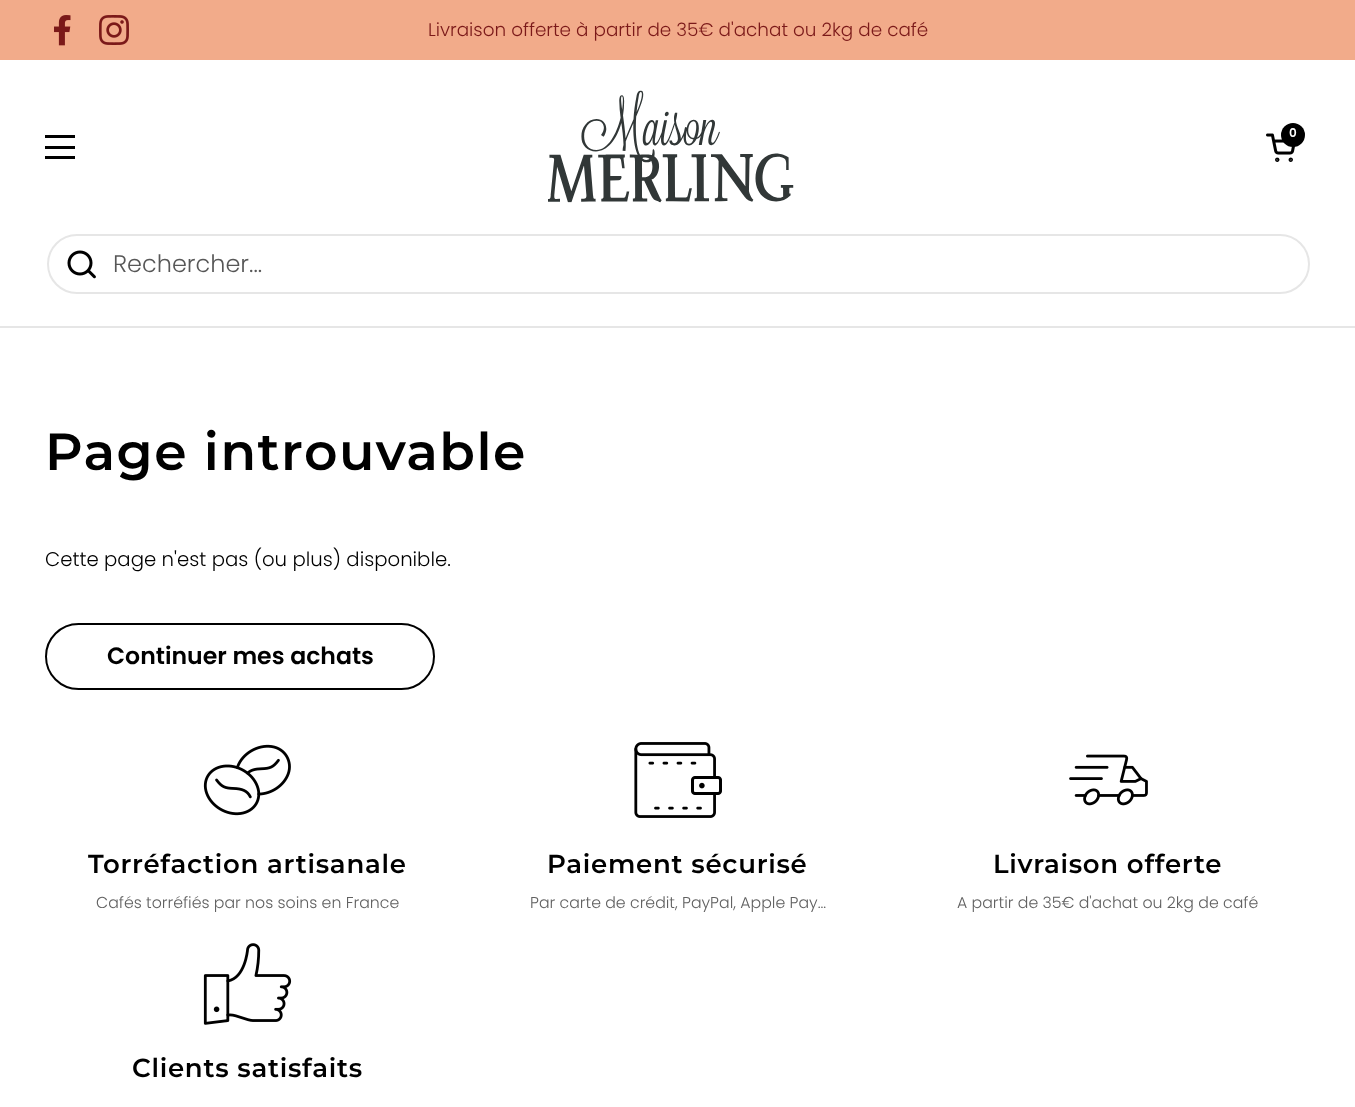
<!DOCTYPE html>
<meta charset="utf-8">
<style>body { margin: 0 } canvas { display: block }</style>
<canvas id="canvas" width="1355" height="1107"></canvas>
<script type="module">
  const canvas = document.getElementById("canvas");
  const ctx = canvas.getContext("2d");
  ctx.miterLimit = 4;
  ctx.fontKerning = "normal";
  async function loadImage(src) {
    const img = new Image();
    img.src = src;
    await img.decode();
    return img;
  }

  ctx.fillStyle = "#ffffff";
  ctx.fillRect(0, 0, 1355, 1107);
  ctx.fillStyle = "#f2ab8a";
  ctx.fillRect(0, 0, 1355, 60);
  ctx.drawImage(await loadImage("img1.png"), 54, 15, 17, 31);
  ctx.drawImage(await loadImage("img2.png"), 99, 15, 30, 30);
  ctx.font = "300 18.4px Poppins";
  ctx.fillStyle = "#7b1919";
  ctx.fillText("Livraison offerte à partir de 35€ d'achat ou 2kg de café", 428, 36);
  ctx.drawImage(await loadImage("img3.png"), 548, 90, 246, 113);
  ctx.drawImage(await loadImage("img4.png"), 1266, 133, 29, 29);
  ctx.fillStyle = "#000000";
  ctx.beginPath();
  ctx.arc(1293, 135, 12, 0, Math.PI * 2);
  ctx.fill();
  ctx.font = "600 12px Poppins";
  ctx.fillStyle = "#ffffff";
  ctx.fillText("0", 1289, 137);
  ctx.fillStyle = "#000000";
  ctx.fillRect(45, 135, 30, 3);
  ctx.fillRect(45, 146, 30, 3);
  ctx.fillRect(45, 156, 30, 3);
  ctx.fillStyle = "#e6e6e6";
  ctx.fillRect(0, 326, 1355, 2);
  ctx.beginPath();
  ctx.roundRect(48, 235, 1261, 58, 29);
  ctx.strokeStyle = "#e6e6e6";
  ctx.lineWidth = 2;
  ctx.stroke();
  ctx.drawImage(await loadImage("img5.png"), 67, 250, 29, 29);
  ctx.font = "300 24px Poppins";
  ctx.fillStyle = "#575757";
  ctx.fillText("Rechercher...", 113, 272);
  ctx.letterSpacing = "1.5px";
  ctx.font = "600 52px Montserrat";
  ctx.fillStyle = "#000000";
  ctx.fillText("Page introuvable", 45, 470);
  ctx.letterSpacing = "0px";
  ctx.font = "300 19.7px Poppins";
  ctx.fillText("Cette page n'est pas (ou plus) disponible.", 45, 566);
  ctx.beginPath();
  ctx.roundRect(46, 624, 388, 65, 32.5);
  ctx.strokeStyle = "#000000";
  ctx.stroke();
  ctx.font = "600 23.6px Poppins";
  ctx.fillText("Continuer mes achats", 107, 664);
  ctx.drawImage(await loadImage("img6.png"), 203, 744, 88, 72);
  ctx.letterSpacing = "0.75px";
  ctx.font = "600 26px Montserrat";
  ctx.fillText("Torréfaction artisanale", 88, 873);
  ctx.letterSpacing = "0px";
  ctx.font = "300 15.75px Poppins";
  ctx.fillStyle = "#616161";
  ctx.fillText("Cafés torréfiés par nos soins en France", 96, 908);
  ctx.drawImage(await loadImage("img7.png"), 634, 742, 88, 76);
  ctx.letterSpacing = "0.75px";
  ctx.font = "600 26px Montserrat";
  ctx.fillStyle = "#000000";
  ctx.fillText("Paiement sécurisé", 547, 873);
  ctx.letterSpacing = "0px";
  ctx.font = "300 15.75px Poppins";
  ctx.fillStyle = "#616161";
  ctx.fillText("Par carte de crédit, PayPal, Apple Pay...", 530, 908);
  ctx.drawImage(await loadImage("img8.png"), 1069, 754, 79, 52);
  ctx.letterSpacing = "0.75px";
  ctx.font = "600 26px Montserrat";
  ctx.fillStyle = "#000000";
  ctx.fillText("Livraison offerte", 993, 873);
  ctx.letterSpacing = "0px";
  ctx.font = "300 15.75px Poppins";
  ctx.fillStyle = "#616161";
  ctx.fillText("A partir de 35€ d'achat ou 2kg de café", 957, 908);
  ctx.drawImage(await loadImage("img9.png"), 203, 943, 89, 82);
  ctx.letterSpacing = "0.75px";
  ctx.font = "600 26px Montserrat";
  ctx.fillStyle = "#000000";
  ctx.fillText("Clients satisfaits", 132, 1077);
</script>
